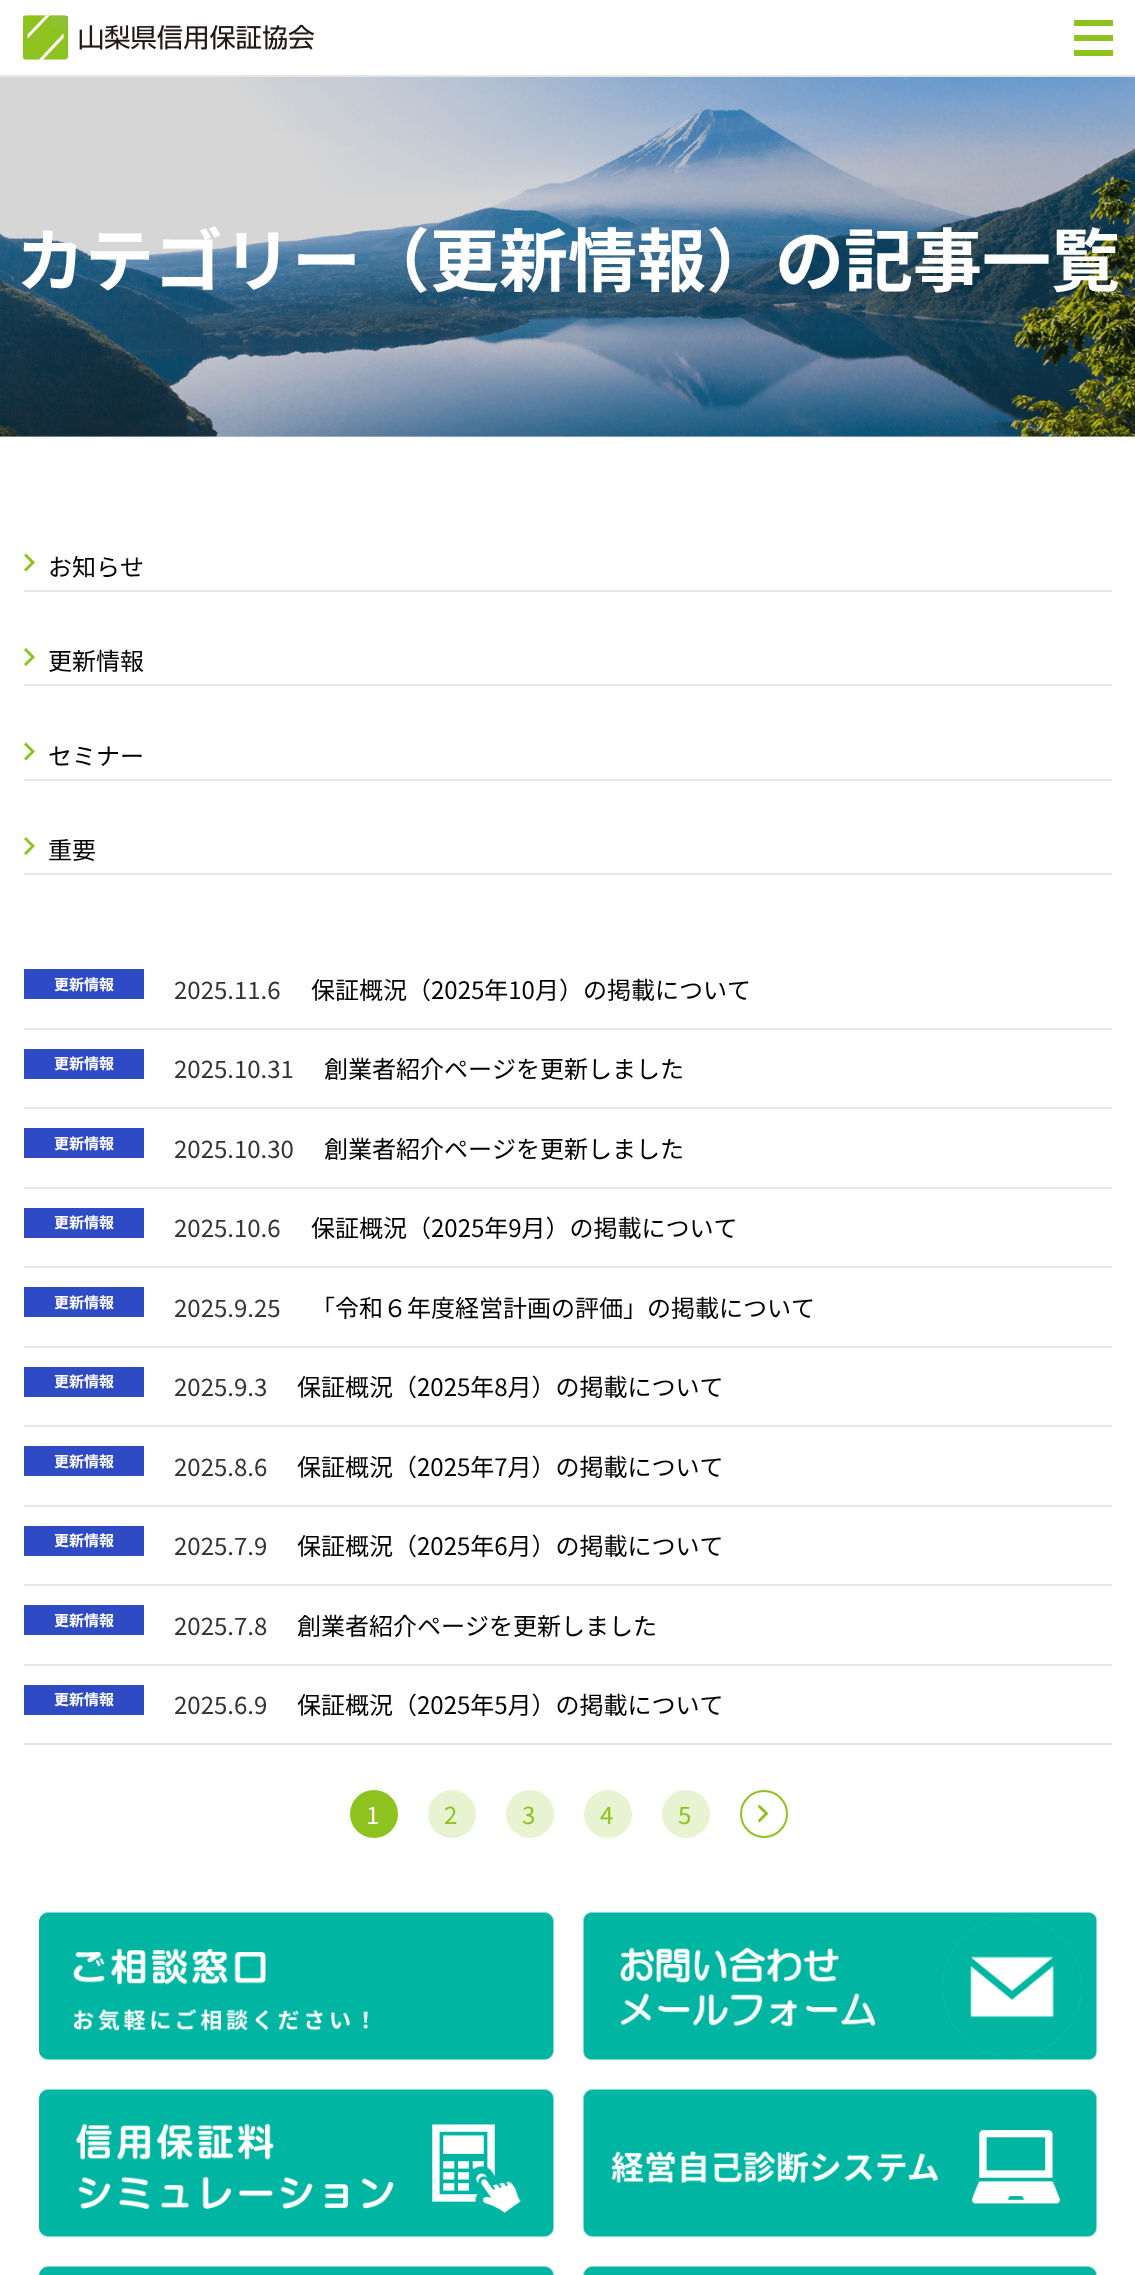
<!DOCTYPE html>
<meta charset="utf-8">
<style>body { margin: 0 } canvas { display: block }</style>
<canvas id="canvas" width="1135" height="2275"></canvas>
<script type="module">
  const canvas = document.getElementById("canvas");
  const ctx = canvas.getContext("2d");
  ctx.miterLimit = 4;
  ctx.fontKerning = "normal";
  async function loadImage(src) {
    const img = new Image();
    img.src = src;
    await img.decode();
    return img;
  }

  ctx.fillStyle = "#ffffff";
  ctx.fillRect(0, 0, 1135, 2275);
  ctx.fillStyle = "#d6d6d6";
  ctx.fillRect(0, 436, 1135, 1);
  ctx.fillStyle = "#e5e5e5";
  ctx.fillRect(0, 75, 1135, 2);
  ctx.drawImage(await loadImage("img1.png"), 23, 15, 291, 45);
  ctx.fillStyle = "#8dc21f";
  ctx.fillRect(1074, 20, 39, 6);
  ctx.fillRect(1074, 35, 39, 6);
  ctx.fillRect(1074, 50, 39, 6);
  ctx.drawImage(await loadImage("img2.png"), 0, 77, 1135, 360);
  ctx.font = "bold 69px Noto Sans JP";
  ctx.fillStyle = "#ffffff";
  ctx.fillText("カテゴリー（更新情報）の記事一覧", 16, 286);
  ctx.fillStyle = "#e5e5e5";
  ctx.fillRect(24, 590, 1088, 2);
  ctx.fillStyle = "#8dc21f";
  ctx.beginPath();
  ctx.moveTo(24, 569.5);
  ctx.lineTo(31, 562.5);
  ctx.lineTo(24, 555.5);
  ctx.lineTo(26, 553.5);
  ctx.lineTo(35, 562.5);
  ctx.lineTo(26, 571.5);
  ctx.closePath();
  ctx.fill();
  ctx.font = "24px Noto Sans JP";
  ctx.fillStyle = "#000000";
  ctx.fillText("お知らせ", 48, 576);
  ctx.fillStyle = "#e5e5e5";
  ctx.fillRect(24, 684, 1088, 2);
  ctx.fillStyle = "#8dc21f";
  ctx.beginPath();
  ctx.moveTo(24, 664);
  ctx.lineTo(31, 657);
  ctx.lineTo(24, 650);
  ctx.lineTo(26, 648);
  ctx.lineTo(35, 657);
  ctx.lineTo(26, 666);
  ctx.closePath();
  ctx.fill();
  ctx.fillStyle = "#000000";
  ctx.fillText("更新情報", 48, 670);
  ctx.fillStyle = "#e5e5e5";
  ctx.fillRect(24, 779, 1088, 2);
  ctx.fillStyle = "#8dc21f";
  ctx.beginPath();
  ctx.moveTo(24, 758.5);
  ctx.lineTo(31, 751.5);
  ctx.lineTo(24, 744.5);
  ctx.lineTo(26, 742.5);
  ctx.lineTo(35, 751.5);
  ctx.lineTo(26, 760.5);
  ctx.closePath();
  ctx.fill();
  ctx.fillStyle = "#000000";
  ctx.fillText("セミナー", 48, 765);
  ctx.fillStyle = "#e5e5e5";
  ctx.fillRect(24, 873, 1088, 2);
  ctx.fillStyle = "#8dc21f";
  ctx.beginPath();
  ctx.moveTo(24, 853);
  ctx.lineTo(31, 846);
  ctx.lineTo(24, 839);
  ctx.lineTo(26, 837);
  ctx.lineTo(35, 846);
  ctx.lineTo(26, 855);
  ctx.closePath();
  ctx.fill();
  ctx.fillStyle = "#000000";
  ctx.fillText("重要", 48, 859);
  ctx.fillStyle = "#e5e5e5";
  ctx.fillRect(24, 1028, 1088, 2);
  ctx.fillStyle = "#2e4ac4";
  ctx.fillRect(24, 969, 120, 30);
  ctx.font = "bold 15px Noto Sans JP";
  ctx.fillStyle = "#ffffff";
  ctx.fillText("更新情報", 54, 990);
  ctx.font = "24px Noto Sans JP";
  ctx.fillStyle = "#333333";
  ctx.fillText("2025.11.6", 174, 999);
  ctx.fillStyle = "#000000";
  ctx.fillText("保証概況（2025年10月）の掲載について", 311, 999);
  ctx.fillStyle = "#e5e5e5";
  ctx.fillRect(24, 1107, 1088, 2);
  ctx.fillStyle = "#2e4ac4";
  ctx.fillRect(24, 1049, 120, 30);
  ctx.font = "bold 15px Noto Sans JP";
  ctx.fillStyle = "#ffffff";
  ctx.fillText("更新情報", 54, 1069);
  ctx.font = "24px Noto Sans JP";
  ctx.fillStyle = "#333333";
  ctx.fillText("2025.10.31", 174, 1078);
  ctx.fillStyle = "#000000";
  ctx.fillText("創業者紹介ページを更新しました", 324, 1078);
  ctx.fillStyle = "#e5e5e5";
  ctx.fillRect(24, 1187, 1088, 2);
  ctx.fillStyle = "#2e4ac4";
  ctx.fillRect(24, 1128, 120, 30);
  ctx.font = "bold 15px Noto Sans JP";
  ctx.fillStyle = "#ffffff";
  ctx.fillText("更新情報", 54, 1149);
  ctx.font = "24px Noto Sans JP";
  ctx.fillStyle = "#333333";
  ctx.fillText("2025.10.30", 174, 1158);
  ctx.fillStyle = "#000000";
  ctx.fillText("創業者紹介ページを更新しました", 324, 1158);
  ctx.fillStyle = "#e5e5e5";
  ctx.fillRect(24, 1266, 1088, 2);
  ctx.fillStyle = "#2e4ac4";
  ctx.fillRect(24, 1208, 120, 30);
  ctx.font = "bold 15px Noto Sans JP";
  ctx.fillStyle = "#ffffff";
  ctx.fillText("更新情報", 54, 1228);
  ctx.font = "24px Noto Sans JP";
  ctx.fillStyle = "#333333";
  ctx.fillText("2025.10.6", 174, 1237);
  ctx.fillStyle = "#000000";
  ctx.fillText("保証概況（2025年9月）の掲載について", 311, 1237);
  ctx.fillStyle = "#e5e5e5";
  ctx.fillRect(24, 1346, 1088, 2);
  ctx.fillStyle = "#2e4ac4";
  ctx.fillRect(24, 1287, 120, 30);
  ctx.font = "bold 15px Noto Sans JP";
  ctx.fillStyle = "#ffffff";
  ctx.fillText("更新情報", 54, 1308);
  ctx.font = "24px Noto Sans JP";
  ctx.fillStyle = "#333333";
  ctx.fillText("2025.9.25", 174, 1317);
  ctx.fillStyle = "#000000";
  ctx.fillText("「令和６年度経営計画の評価」の掲載について", 311, 1317);
  ctx.fillStyle = "#e5e5e5";
  ctx.fillRect(24, 1425, 1088, 2);
  ctx.fillStyle = "#2e4ac4";
  ctx.fillRect(24, 1367, 120, 30);
  ctx.font = "bold 15px Noto Sans JP";
  ctx.fillStyle = "#ffffff";
  ctx.fillText("更新情報", 54, 1387);
  ctx.font = "24px Noto Sans JP";
  ctx.fillStyle = "#333333";
  ctx.fillText("2025.9.3", 174, 1396);
  ctx.fillStyle = "#000000";
  ctx.fillText("保証概況（2025年8月）の掲載について", 297, 1396);
  ctx.fillStyle = "#e5e5e5";
  ctx.fillRect(24, 1505, 1088, 2);
  ctx.fillStyle = "#2e4ac4";
  ctx.fillRect(24, 1446, 120, 30);
  ctx.font = "bold 15px Noto Sans JP";
  ctx.fillStyle = "#ffffff";
  ctx.fillText("更新情報", 54, 1467);
  ctx.font = "24px Noto Sans JP";
  ctx.fillStyle = "#333333";
  ctx.fillText("2025.8.6", 174, 1476);
  ctx.fillStyle = "#000000";
  ctx.fillText("保証概況（2025年7月）の掲載について", 297, 1476);
  ctx.fillStyle = "#e5e5e5";
  ctx.fillRect(24, 1584, 1088, 2);
  ctx.fillStyle = "#2e4ac4";
  ctx.fillRect(24, 1526, 120, 30);
  ctx.font = "bold 15px Noto Sans JP";
  ctx.fillStyle = "#ffffff";
  ctx.fillText("更新情報", 54, 1546);
  ctx.font = "24px Noto Sans JP";
  ctx.fillStyle = "#333333";
  ctx.fillText("2025.7.9", 174, 1555);
  ctx.fillStyle = "#000000";
  ctx.fillText("保証概況（2025年6月）の掲載について", 297, 1555);
  ctx.fillStyle = "#e5e5e5";
  ctx.fillRect(24, 1664, 1088, 2);
  ctx.fillStyle = "#2e4ac4";
  ctx.fillRect(24, 1605, 120, 30);
  ctx.font = "bold 15px Noto Sans JP";
  ctx.fillStyle = "#ffffff";
  ctx.fillText("更新情報", 54, 1626);
  ctx.font = "24px Noto Sans JP";
  ctx.fillStyle = "#333333";
  ctx.fillText("2025.7.8", 174, 1635);
  ctx.fillStyle = "#000000";
  ctx.fillText("創業者紹介ページを更新しました", 297, 1635);
  ctx.fillStyle = "#e5e5e5";
  ctx.fillRect(24, 1743, 1088, 2);
  ctx.fillStyle = "#2e4ac4";
  ctx.fillRect(24, 1685, 120, 30);
  ctx.font = "bold 15px Noto Sans JP";
  ctx.fillStyle = "#ffffff";
  ctx.fillText("更新情報", 54, 1705);
  ctx.font = "24px Noto Sans JP";
  ctx.fillStyle = "#333333";
  ctx.fillText("2025.6.9", 174, 1714);
  ctx.fillStyle = "#000000";
  ctx.fillText("保証概況（2025年5月）の掲載について", 297, 1714);
  ctx.fillStyle = "#8dc21f";
  ctx.beginPath();
  ctx.arc(374, 1814, 24, 0, Math.PI * 2);
  ctx.fill();
  ctx.fillStyle = "#ffffff";
  ctx.fillText("1", 366, 1824);
  ctx.fillStyle = "#e8f3d2";
  ctx.beginPath();
  ctx.arc(452, 1814, 24, 0, Math.PI * 2);
  ctx.fill();
  ctx.fillStyle = "#8dc21f";
  ctx.fillText("2", 444, 1824);
  ctx.fillStyle = "#e8f3d2";
  ctx.beginPath();
  ctx.arc(530, 1814, 24, 0, Math.PI * 2);
  ctx.fill();
  ctx.fillStyle = "#8dc21f";
  ctx.fillText("3", 522, 1824);
  ctx.fillStyle = "#e8f3d2";
  ctx.beginPath();
  ctx.arc(608, 1814, 24, 0, Math.PI * 2);
  ctx.fill();
  ctx.fillStyle = "#8dc21f";
  ctx.fillText("4", 600, 1824);
  ctx.fillStyle = "#e8f3d2";
  ctx.beginPath();
  ctx.arc(686, 1814, 24, 0, Math.PI * 2);
  ctx.fill();
  ctx.fillStyle = "#8dc21f";
  ctx.fillText("5", 678, 1824);
  ctx.beginPath();
  ctx.arc(764, 1814, 23, 0, Math.PI * 2);
  ctx.strokeStyle = "#8dc21f";
  ctx.lineWidth = 2;
  ctx.stroke();
  ctx.save();
  ctx.beginPath();
  ctx.rect(758, 1805, 12, 18);
  ctx.clip();
  ctx.beginPath();
  ctx.moveTo(757.5, 1820.5);
  ctx.lineTo(764.5, 1813.5);
  ctx.lineTo(757.5, 1806.5);
  ctx.lineTo(759.5, 1804.5);
  ctx.lineTo(768.5, 1813.5);
  ctx.lineTo(759.5, 1822.5);
  ctx.closePath();
  ctx.fill();
  ctx.restore();
  ctx.drawImage(await loadImage("img3.png"), 39, 1912, 515, 148);
  ctx.drawImage(await loadImage("img4.png"), 583, 1912, 514, 148);
  ctx.drawImage(await loadImage("img5.png"), 39, 2089, 515, 148);
  ctx.drawImage(await loadImage("img6.png"), 583, 2089, 514, 148);
  ctx.drawImage(await loadImage("img7.png"), 39, 2266, 515, 9);
  ctx.drawImage(await loadImage("img8.png"), 583, 2266, 514, 9);
</script>
